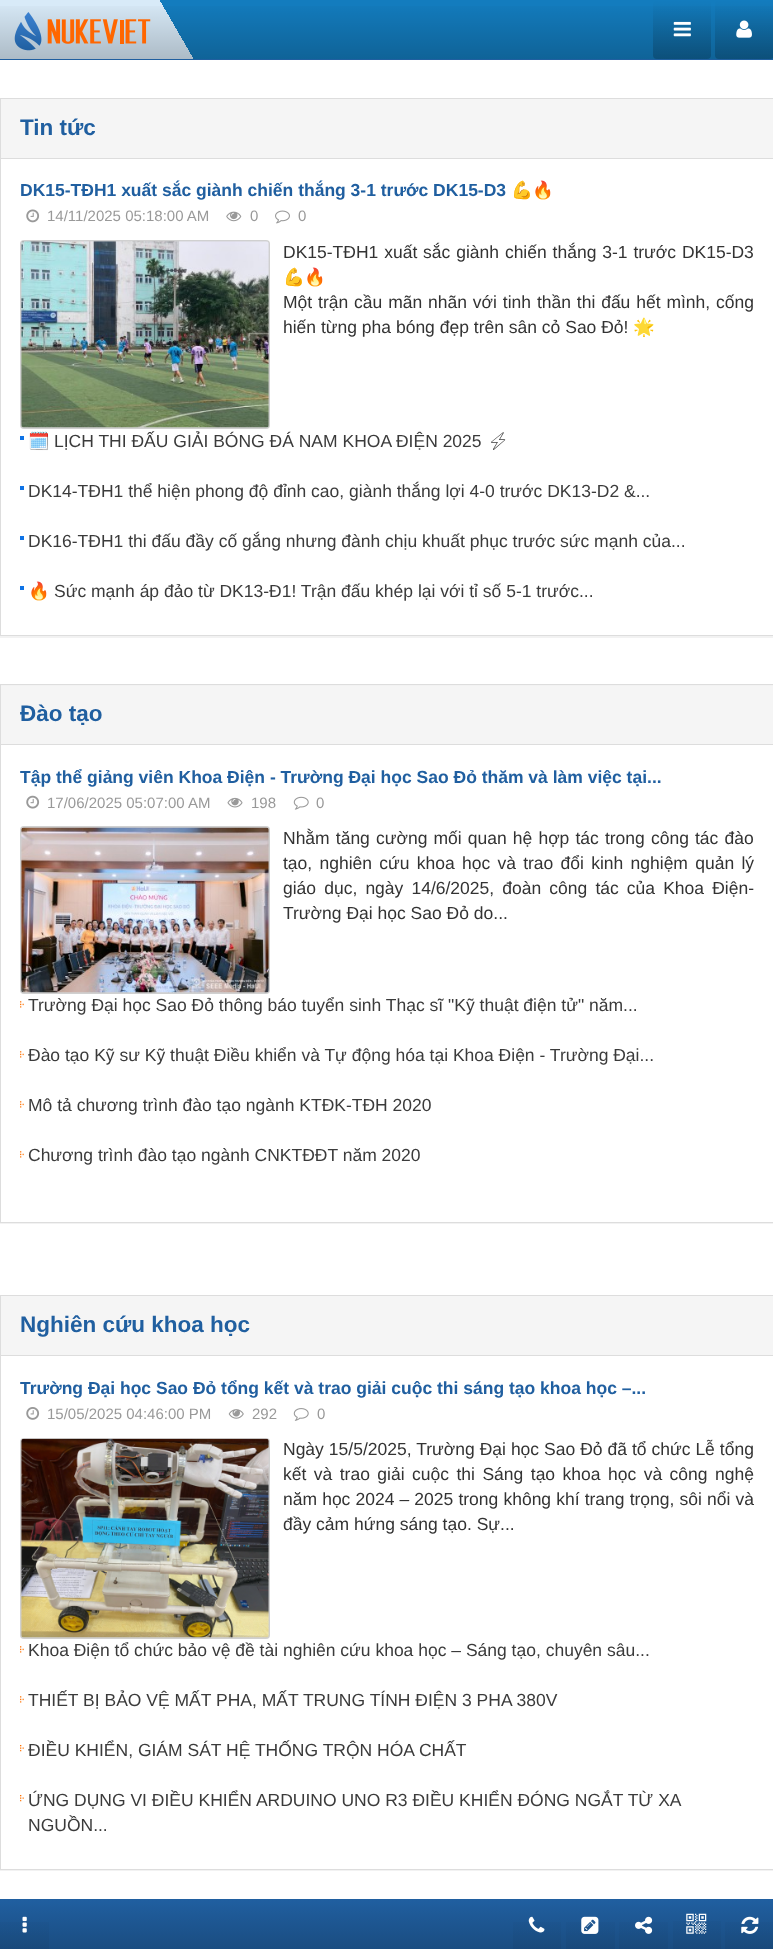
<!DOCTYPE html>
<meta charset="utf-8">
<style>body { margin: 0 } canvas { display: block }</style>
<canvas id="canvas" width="773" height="1949"></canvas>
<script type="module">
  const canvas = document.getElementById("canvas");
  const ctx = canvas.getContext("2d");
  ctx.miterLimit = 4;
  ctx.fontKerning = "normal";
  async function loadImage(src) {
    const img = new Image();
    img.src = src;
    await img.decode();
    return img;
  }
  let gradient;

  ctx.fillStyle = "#ffffff";
  ctx.fillRect(0, 0, 773, 1949);
  gradient = ctx.createLinearGradient(84, 205, 690, -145);
  gradient.addColorStop(0, "#d8eaf8");
  gradient.addColorStop(0.24, "#d8eaf8");
  gradient.addColorStop(0.24, "#137cbe");
  gradient.addColorStop(1, "#137cbe");
  ctx.fillStyle = gradient;
  ctx.fillRect(0, 0, 773, 59);
  gradient = ctx.createLinearGradient(387, 0, 387, 59);
  gradient.addColorStop(0, "rgba(0, 0, 0, 0)");
  gradient.addColorStop(1, "rgba(0, 0, 0, 0.2)");
  ctx.fillStyle = gradient;
  ctx.fillRect(0, 6, 773, 53);
  ctx.fillStyle = "#205fa0";
  ctx.fillRect(0, 59, 773, 1);
  ctx.drawImage(await loadImage("img1.png"), 14, 12, 137, 39);
  gradient = ctx.createLinearGradient(682, 0, 682, 59);
  gradient.addColorStop(0, "rgba(0, 0, 0, 0)");
  gradient.addColorStop(1, "rgba(0, 0, 0, 0.2)");
  ctx.fillStyle = gradient;
  ctx.beginPath();
  ctx.roundRect(653, 0, 58, 59, 4);
  ctx.fill();
  ctx.drawImage(await loadImage("img2.png"), 673, 21, 18, 16);
  gradient = ctx.createLinearGradient(744, 0, 744, 59);
  gradient.addColorStop(0, "rgba(0, 0, 0, 0)");
  gradient.addColorStop(1, "rgba(0, 0, 0, 0.2)");
  ctx.fillStyle = gradient;
  ctx.beginPath();
  ctx.roundRect(715, 0, 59, 59, 4);
  ctx.fill();
  ctx.drawImage(await loadImage("img3.png"), 736, 20, 16, 18);
  ctx.save();
  ctx.beginPath();
  ctx.rect(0, 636, 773, 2);
  ctx.clip();
  ctx.fillStyle = "rgba(0, 0, 0, 0.05)";
  ctx.filter = "blur(0.5px)";
  ctx.beginPath();
  ctx.rect(0, 99, 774, 539);
  ctx.fill();
  ctx.filter = "none";
  ctx.restore();
  ctx.strokeStyle = "#dddddd";
  ctx.strokeRect(0.5, 98.5, 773, 537);
  ctx.fillStyle = "#f5f5f5";
  ctx.fillRect(1, 99, 772, 59);
  ctx.fillStyle = "#dddddd";
  ctx.fillRect(1, 158, 772, 1);
  ctx.font = "bold 22.5px Liberation Sans";
  ctx.fillStyle = "#205fa0";
  ctx.fillText("Tin tức", 20, 135);
  ctx.font = "bold 17.5px Liberation Sans";
  ctx.fillText("DK15-TĐH1 xuất sắc giành chiến thắng 3-1 trước DK15-D3", 20, 196);
  ctx.font = "bold 17.5px Noto Color Emoji";
  ctx.fillText("💪🔥", 511, 196);
  ctx.drawImage(await loadImage("img4.png"), 26, 209, 14, 14);
  ctx.font = "15px Liberation Sans";
  ctx.fillStyle = "#999999";
  ctx.fillText("14/11/2025 05:18:00 AM", 47, 221);
  ctx.drawImage(await loadImage("img5.png"), 226, 211, 16, 11);
  ctx.fillText("0", 250, 221);
  ctx.drawImage(await loadImage("img6.png"), 275, 210, 15, 14);
  ctx.fillText("0", 298, 221);
  ctx.fillStyle = "#d0d0d0";
  ctx.beginPath();
  ctx.roundRect(20, 240, 250, 189, 4);
  ctx.fill();
  ctx.drawImage(await loadImage("img7.png"), 21, 241, 248, 187);
  ctx.wordSpacing = "1px";
  ctx.font = "17.5px Liberation Sans";
  ctx.fillStyle = "#333333";
  ctx.fillText("DK15-TĐH1 xuất sắc giành chiến thắng 3-1 trước DK15-D3", 283, 258);
  ctx.wordSpacing = "0px";
  ctx.font = "17.5px Noto Color Emoji";
  ctx.fillText("💪🔥", 283, 283);
  ctx.wordSpacing = "1px";
  ctx.font = "17.5px Liberation Sans";
  ctx.fillText("Một trận cầu mãn nhãn với tinh thần thi đấu hết mình, cống", 283, 308);
  ctx.wordSpacing = "0px";
  ctx.fillText("hiến từng pha bóng đẹp trên sân cỏ Sao Đỏ!", 283, 333);
  ctx.font = "17.5px Noto Color Emoji";
  ctx.fillText("🌟", 633, 333);
  ctx.fillStyle = "#0e73e6";
  ctx.fillRect(20, 436, 4, 4);
  ctx.fillStyle = "#3b3b3b";
  ctx.fillText("🗓", 28, 447);
  ctx.font = "17.5px Liberation Sans";
  ctx.fillText("LỊCH THI ĐẤU GIẢI BÓNG ĐÁ NAM KHOA ĐIỆN 2025", 54, 447);
  ctx.font = "17.5px Noto Emoji";
  ctx.fillText("⚡", 487, 447);
  ctx.fillStyle = "#0e73e6";
  ctx.fillRect(20, 486, 4, 4);
  ctx.font = "17.5px Liberation Sans";
  ctx.fillStyle = "#3b3b3b";
  ctx.fillText("DK14-TĐH1 thể hiện phong độ đỉnh cao, giành thắng lợi 4-0 trước DK13-D2 &...", 28, 497);
  ctx.fillStyle = "#0e73e6";
  ctx.fillRect(20, 536, 4, 4);
  ctx.fillStyle = "#3b3b3b";
  ctx.fillText("DK16-TĐH1 thi đấu đầy cố gắng nhưng đành chịu khuất phục trước sức mạnh của...", 28, 547);
  ctx.fillStyle = "#0e73e6";
  ctx.fillRect(20, 586, 4, 4);
  ctx.font = "17.5px Noto Color Emoji";
  ctx.fillStyle = "#3b3b3b";
  ctx.fillText("🔥", 28, 597);
  ctx.font = "17.5px Liberation Sans";
  ctx.fillText("Sức mạnh áp đảo từ DK13-Đ1! Trận đấu khép lại với tỉ số 5-1 trước...", 54, 597);
  ctx.fillStyle = "rgba(0, 0, 0, 0.05)";
  ctx.filter = "blur(0.5px)";
  ctx.beginPath();
  ctx.rect(0, 685, 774, 539);
  ctx.fill();
  ctx.filter = "none";
  ctx.fillStyle = "#ffffff";
  ctx.fillRect(1, 745, 772, 477);
  ctx.strokeRect(0.5, 684.5, 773, 538);
  ctx.fillStyle = "#f5f5f5";
  ctx.fillRect(1, 686, 772, 58);
  ctx.fillStyle = "#dddddd";
  ctx.fillRect(1, 744, 772, 1);
  ctx.font = "bold 22.5px Liberation Sans";
  ctx.fillStyle = "#205fa0";
  ctx.fillText("Đào tạo", 20, 721);
  ctx.font = "bold 17.5px Liberation Sans";
  ctx.fillText("Tập thể giảng viên Khoa Điện - Trường Đại học Sao Đỏ thăm và làm việc tại...", 20, 783);
  ctx.drawImage(await loadImage("img8.png"), 26, 795, 14, 14);
  ctx.font = "15px Liberation Sans";
  ctx.fillStyle = "#999999";
  ctx.fillText("17/06/2025 05:07:00 AM", 47, 808);
  ctx.drawImage(await loadImage("img9.png"), 227, 797, 16, 11);
  ctx.fillText("198", 251, 808);
  ctx.drawImage(await loadImage("img10.png"), 293, 796, 16, 14);
  ctx.fillText("0", 316, 808);
  ctx.fillStyle = "#d0d0d0";
  ctx.beginPath();
  ctx.roundRect(20, 826, 250, 168, 4);
  ctx.fill();
  ctx.drawImage(await loadImage("img11.png"), 21, 827, 248, 166);
  ctx.wordSpacing = "1.25px";
  ctx.font = "17.5px Liberation Sans";
  ctx.fillStyle = "#333333";
  ctx.fillText("Nhằm tăng cường mối quan hệ hợp tác trong công tác đào", 283, 844);
  ctx.wordSpacing = "2.4px";
  ctx.fillText("tạo, nghiên cứu khoa học và trao đổi kinh nghiệm quản lý", 283, 869);
  ctx.wordSpacing = "3.25px";
  ctx.fillText("giáo dục, ngày 14/6/2025, đoàn công tác của Khoa Điện-", 283, 894);
  ctx.wordSpacing = "0px";
  ctx.fillText("Trường Đại học Sao Đỏ do...", 283, 919);
  ctx.drawImage(await loadImage("img12.png"), 20, 1001, 4, 7);
  ctx.fillStyle = "#3b3b3b";
  ctx.fillText("Trường Đại học Sao Đỏ thông báo tuyển sinh Thạc sĩ \"Kỹ thuật điện tử\" năm...", 28, 1011);
  ctx.drawImage(await loadImage("img12.png"), 20, 1051, 4, 7);
  ctx.fillText("Đào tạo Kỹ sư Kỹ thuật Điều khiển và Tự động hóa tại Khoa Điện - Trường Đại...", 28, 1061);
  ctx.drawImage(await loadImage("img12.png"), 20, 1101, 4, 7);
  ctx.fillText("Mô tả chương trình đào tạo ngành KTĐK-TĐH 2020", 28, 1111);
  ctx.drawImage(await loadImage("img12.png"), 20, 1151, 4, 7);
  ctx.fillText("Chương trình đào tạo ngành CNKTĐĐT năm 2020", 28, 1161);
  ctx.save();
  ctx.beginPath();
  ctx.rect(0, 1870, 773, 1);
  ctx.clip();
  ctx.fillStyle = "rgba(0, 0, 0, 0.05)";
  ctx.filter = "blur(0.5px)";
  ctx.beginPath();
  ctx.rect(0, 1296, 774, 575);
  ctx.fill();
  ctx.filter = "none";
  ctx.restore();
  ctx.strokeRect(0.5, 1295.5, 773, 574);
  ctx.fillStyle = "#f5f5f5";
  ctx.fillRect(1, 1296, 772, 59);
  ctx.fillStyle = "#dddddd";
  ctx.fillRect(1, 1355, 772, 1);
  ctx.font = "bold 22.5px Liberation Sans";
  ctx.fillStyle = "#205fa0";
  ctx.fillText("Nghiên cứu khoa học", 20, 1332);
  ctx.font = "bold 17.5px Liberation Sans";
  ctx.fillText("Trường Đại học Sao Đỏ tổng kết và trao giải cuộc thi sáng tạo khoa học –...", 20, 1394);
  ctx.drawImage(await loadImage("img13.png"), 26, 1407, 14, 13);
  ctx.font = "15px Liberation Sans";
  ctx.fillStyle = "#999999";
  ctx.fillText("15/05/2025 04:46:00 PM", 47, 1419);
  ctx.drawImage(await loadImage("img14.png"), 228, 1409, 16, 10);
  ctx.fillText("292", 252, 1419);
  ctx.drawImage(await loadImage("img15.png"), 293, 1408, 16, 13);
  ctx.fillText("0", 317, 1419);
  ctx.fillStyle = "#d0d0d0";
  ctx.beginPath();
  ctx.roundRect(20, 1438, 250, 201, 4);
  ctx.fill();
  ctx.drawImage(await loadImage("img16.png"), 21, 1438, 248, 200);
  ctx.wordSpacing = "0.1px";
  ctx.font = "17.5px Liberation Sans";
  ctx.fillStyle = "#333333";
  ctx.fillText("Ngày 15/5/2025, Trường Đại học Sao Đỏ đã tổ chức Lễ tổng", 283, 1455);
  ctx.wordSpacing = "2.6px";
  ctx.fillText("kết và trao giải cuộc thi Sáng tạo khoa học và công nghệ", 283, 1480);
  ctx.wordSpacing = "0.25px";
  ctx.fillText("năm học 2024 – 2025 trong không khí trang trọng, sôi nổi và", 283, 1505);
  ctx.wordSpacing = "0px";
  ctx.fillText("đầy cảm hứng sáng tạo. Sự...", 283, 1530);
  ctx.drawImage(await loadImage("img12.png"), 20, 1646, 4, 7);
  ctx.fillStyle = "#3b3b3b";
  ctx.fillText("Khoa Điện tổ chức bảo vệ đề tài nghiên cứu khoa học – Sáng tạo, chuyên sâu...", 28, 1656);
  ctx.drawImage(await loadImage("img12.png"), 20, 1696, 4, 7);
  ctx.fillText("THIẾT BỊ BẢO VỆ MẤT PHA, MẤT TRUNG TÍNH ĐIỆN 3 PHA 380V", 28, 1706);
  ctx.drawImage(await loadImage("img17.png"), 20, 1745, 4, 7);
  ctx.fillText("ĐIỀU KHIỂN, GIÁM SÁT HỆ THỐNG TRỘN HÓA CHẤT", 28, 1756);
  ctx.drawImage(await loadImage("img17.png"), 20, 1795, 4, 7);
  ctx.fillText("ỨNG DỤNG VI ĐIỀU KHIỂN ARDUINO UNO R3 ĐIỀU KHIỂN ĐÓNG NGẮT TỪ XA", 28, 1806);
  ctx.fillText("NGUỒN...", 28, 1831);
  gradient = ctx.createLinearGradient(387, 1900, 387, 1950);
  gradient.addColorStop(0, "#205fa0");
  gradient.addColorStop(1, "#1a4c80");
  ctx.fillStyle = gradient;
  ctx.fillRect(0, 1900, 773, 49);
  ctx.fillStyle = "#205fa0";
  ctx.fillRect(0, 1899, 773, 1);
  gradient = ctx.createLinearGradient(24, 1901, 24, 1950);
  gradient.addColorStop(0, "rgba(0, 0, 0, 0)");
  gradient.addColorStop(1, "rgba(0, 0, 0, 0.05)");
  ctx.fillStyle = gradient;
  ctx.fillRect(0, 1922, 49, 27);
  ctx.drawImage(await loadImage("img18.png"), 22, 1916, 5, 17);
  gradient = ctx.createLinearGradient(537, 1901, 537, 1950);
  gradient.addColorStop(0, "rgba(0, 0, 0, 0)");
  gradient.addColorStop(1, "rgba(0, 0, 0, 0.05)");
  ctx.fillStyle = gradient;
  ctx.fillRect(513, 1922, 48, 27);
  ctx.drawImage(await loadImage("img19.png"), 528, 1916, 17, 17);
  gradient = ctx.createLinearGradient(591, 1901, 591, 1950);
  gradient.addColorStop(0, "rgba(0, 0, 0, 0)");
  gradient.addColorStop(1, "rgba(0, 0, 0, 0.05)");
  ctx.fillStyle = gradient;
  ctx.fillRect(566, 1922, 49, 27);
  ctx.drawImage(await loadImage("img20.png"), 581, 1916, 18, 18);
  gradient = ctx.createLinearGradient(643, 1901, 643, 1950);
  gradient.addColorStop(0, "rgba(0, 0, 0, 0)");
  gradient.addColorStop(1, "rgba(0, 0, 0, 0.05)");
  ctx.fillStyle = gradient;
  ctx.fillRect(619, 1922, 49, 27);
  ctx.drawImage(await loadImage("img21.png"), 635, 1916, 18, 18);
  gradient = ctx.createLinearGradient(697, 1900, 697, 1949);
  gradient.addColorStop(0, "rgba(0, 0, 0, 0)");
  gradient.addColorStop(1, "rgba(0, 0, 0, 0.05)");
  ctx.fillStyle = gradient;
  ctx.fillRect(673, 1921, 48, 28);
  ctx.drawImage(await loadImage("img22.png"), 686, 1913, 21, 21);
  gradient = ctx.createLinearGradient(749, 1901, 749, 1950);
  gradient.addColorStop(0, "rgba(0, 0, 0, 0)");
  gradient.addColorStop(1, "rgba(0, 0, 0, 0.05)");
  ctx.fillStyle = gradient;
  ctx.fillRect(725, 1922, 48, 27);
  ctx.drawImage(await loadImage("img23.png"), 741, 1916, 18, 18);
</script>
